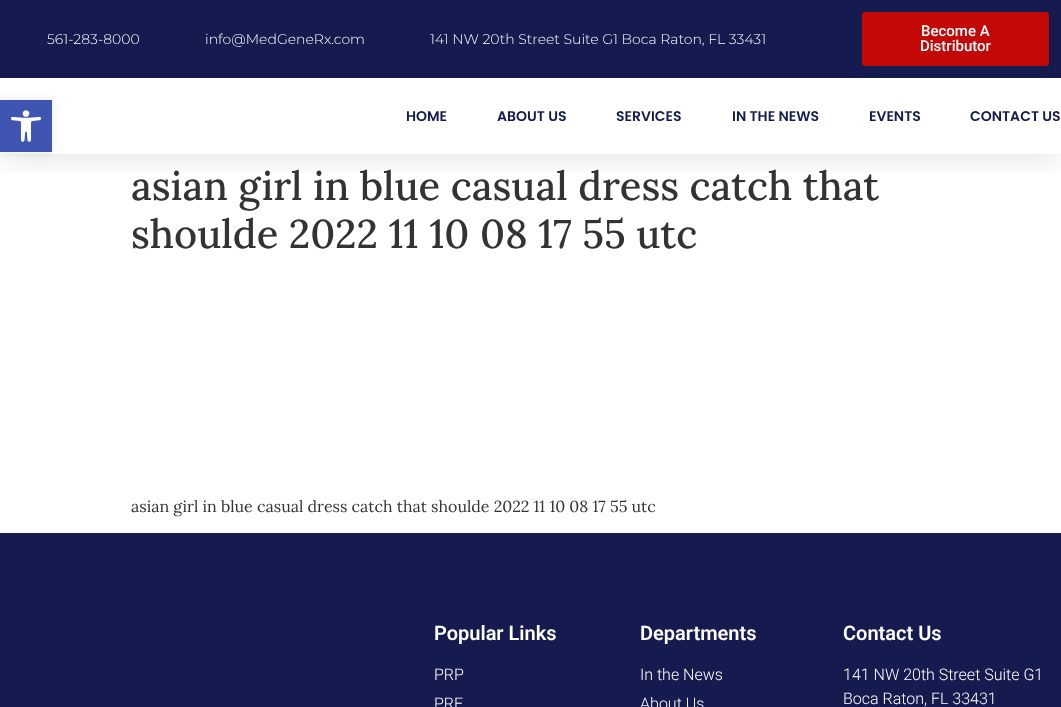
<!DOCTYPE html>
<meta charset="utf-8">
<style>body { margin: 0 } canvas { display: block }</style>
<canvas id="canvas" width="1061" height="707"></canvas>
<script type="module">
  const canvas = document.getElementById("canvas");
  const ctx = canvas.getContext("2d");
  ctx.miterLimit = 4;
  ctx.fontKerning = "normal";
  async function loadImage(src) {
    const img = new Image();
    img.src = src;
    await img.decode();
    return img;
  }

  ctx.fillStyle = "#ffffff";
  ctx.fillRect(0, 0, 1061, 707);
  ctx.fillStyle = "rgba(0, 0, 0, 0.1)";
  ctx.filter = "blur(5px)";
  ctx.beginPath();
  ctx.rect(0, 100, 52, 52);
  ctx.fill();
  ctx.filter = "none";
  ctx.save();
  ctx.beginPath();
  ctx.rect(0, 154, 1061, 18);
  ctx.clip();
  ctx.filter = "blur(15px)";
  ctx.beginPath();
  ctx.rect(0, 5, 1061, 154);
  ctx.fill();
  ctx.filter = "none";
  ctx.restore();
  ctx.fillStyle = "#4054b2";
  ctx.fillRect(0, 100, 52, 52);
  ctx.drawImage(await loadImage("img1.png"), 11, 110, 30, 32);
  ctx.fillStyle = "#151b4e";
  ctx.fillRect(0, 0, 1061, 78);
  ctx.font = "300 14px Montserrat";
  ctx.fillStyle = "#ffffff";
  ctx.fillText("561-283-8000", 47, 44);
  ctx.fillText("info@MedGeneRx.com", 205, 44);
  ctx.fillText("141 NW 20th Street Suite G1 Boca Raton, FL 33431", 430, 44);
  ctx.fillStyle = "#c30808";
  ctx.beginPath();
  ctx.roundRect(862, 12, 187, 54, 3);
  ctx.fill();
  ctx.font = "500 15px Roboto";
  ctx.fillStyle = "#ffffff";
  ctx.fillText("Become A", 921, 36);
  ctx.fillText("Distributor", 920, 51);
  ctx.font = "600 14px Poppins";
  ctx.fillStyle = "#151b4e";
  ctx.fillText("HOME", 406, 121);
  ctx.fillText("ABOUT US", 497, 121);
  ctx.fillText("SERVICES", 616, 121);
  ctx.fillText("IN THE NEWS", 732, 121);
  ctx.fillText("EVENTS", 869, 121);
  ctx.fillText("CONTACT US", 970, 121);
  ctx.font = "500 40px Lora";
  ctx.fillStyle = "#333333";
  ctx.fillText("asian girl in blue casual dress catch that", 131, 200);
  ctx.fillText("shoulde 2022 11 10 08 17 55 utc", 131, 248);
  ctx.font = "16px Lora";
  ctx.fillText("asian girl in blue casual dress catch that shoulde 2022 11 10 08 17 55 utc", 131, 512);
  ctx.fillStyle = "#151b4e";
  ctx.fillRect(0, 533, 1061, 174);
  ctx.font = "600 20px Roboto";
  ctx.fillStyle = "#ffffff";
  ctx.fillText("Popular Links", 434, 640);
  ctx.font = "300 16px Roboto";
  ctx.fillText("PRP", 434, 680);
  ctx.fillText("PRF", 434, 709);
  ctx.font = "600 20px Roboto";
  ctx.fillText("Departments", 640, 640);
  ctx.font = "300 16px Roboto";
  ctx.fillText("In the News", 640, 680);
  ctx.fillText("About Us", 640, 709);
  ctx.font = "600 20px Roboto";
  ctx.fillText("Contact Us", 843, 640);
  ctx.font = "300 16px Roboto";
  ctx.fillText("141 NW 20th Street Suite G1", 843, 680);
  ctx.fillText("Boca Raton, FL 33431", 843, 704);
</script>
